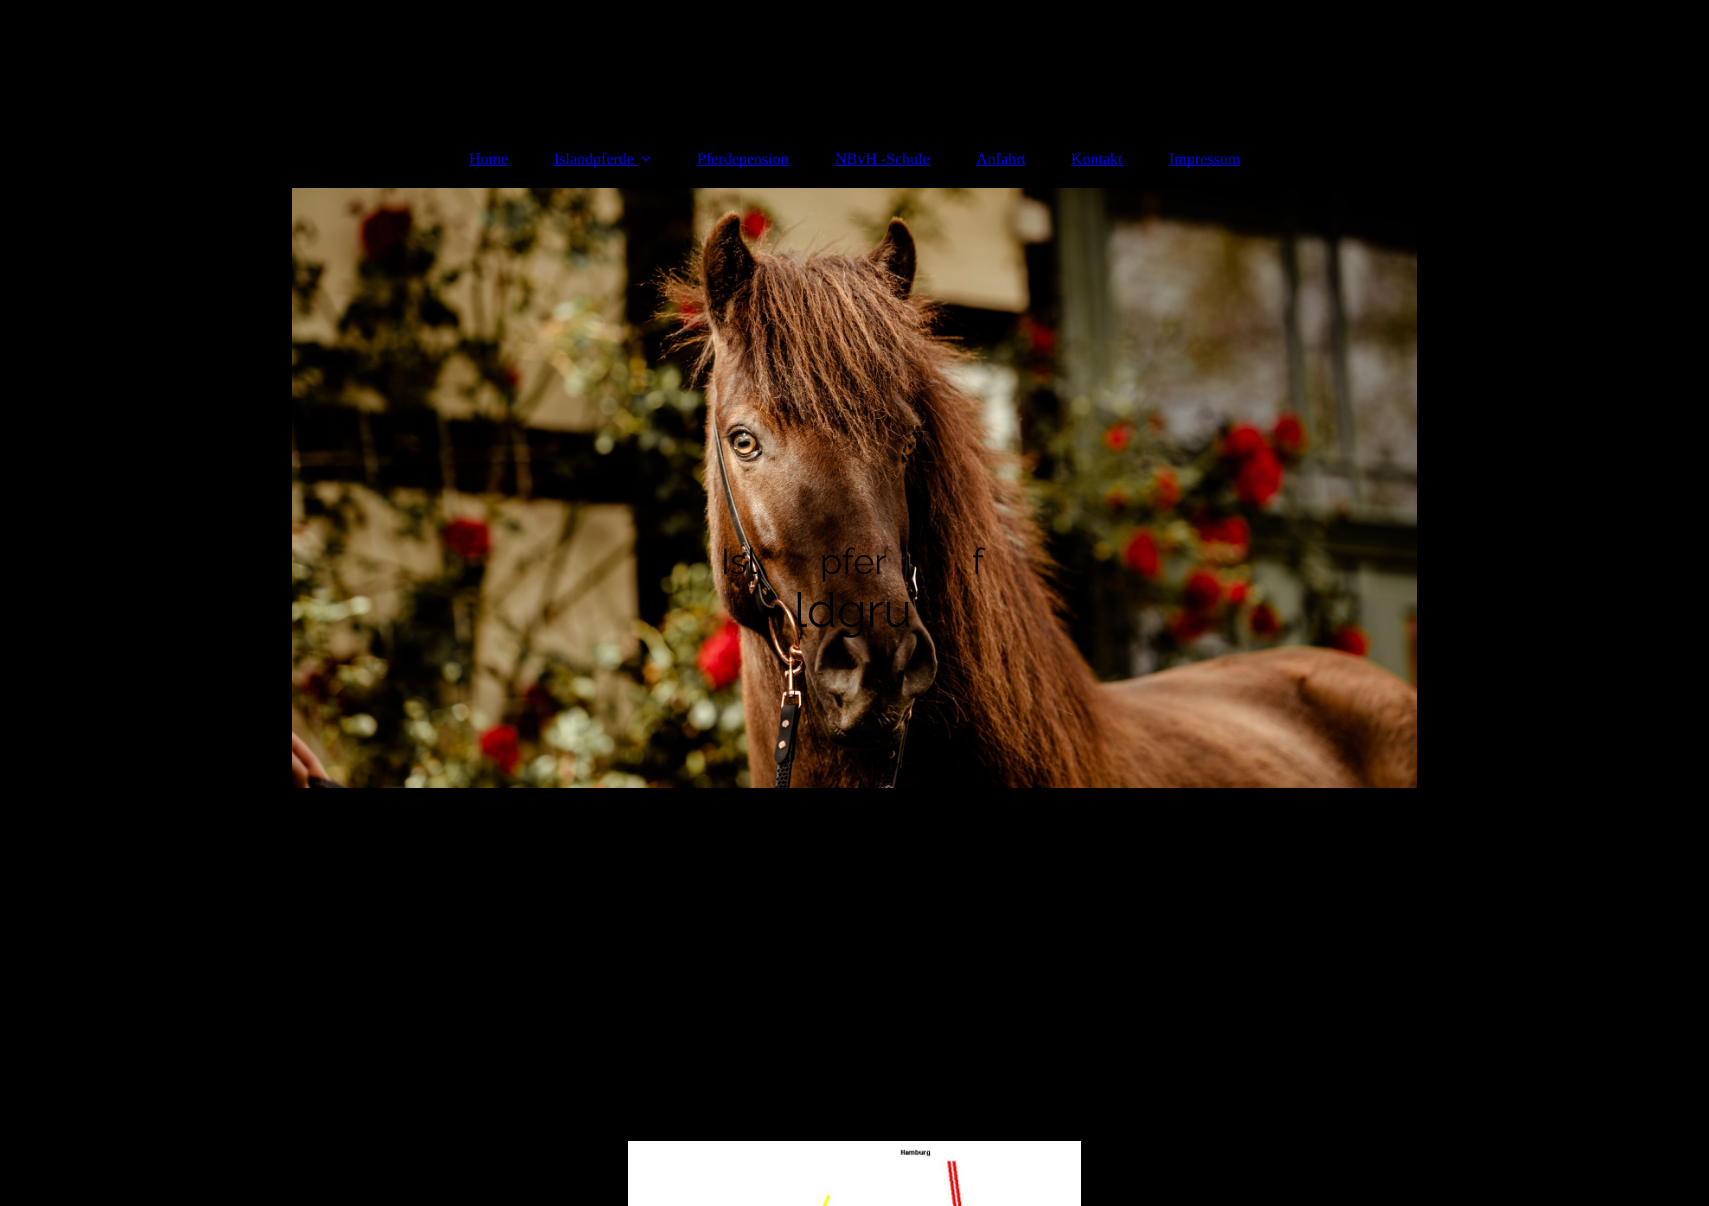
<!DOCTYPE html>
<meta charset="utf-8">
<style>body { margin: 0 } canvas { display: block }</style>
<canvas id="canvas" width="1709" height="1206"></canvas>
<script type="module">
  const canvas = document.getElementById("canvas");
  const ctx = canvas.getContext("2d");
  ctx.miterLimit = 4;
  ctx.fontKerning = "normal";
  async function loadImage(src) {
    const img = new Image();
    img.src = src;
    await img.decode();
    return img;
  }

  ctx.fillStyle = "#000000";
  ctx.fillRect(0, 0, 1709, 1206);
  ctx.font = "16px Liberation Serif";
  ctx.fillStyle = "#0000ee";
  ctx.fillText("Home", 469, 164);
  ctx.fillRect(469, 165, 39, 1);
  ctx.fillRect(554, 165, 84, 1);
  ctx.fillText("Islandpferde", 554, 164);
  ctx.drawImage(await loadImage("img1.png"), 641, 156, 10, 6);
  ctx.fillRect(697, 165, 92, 1);
  ctx.fillText("Pferdepension", 697, 164);
  ctx.fillText("NBvH -Schule", 835, 164);
  ctx.fillRect(835, 165, 95, 1);
  ctx.fillText("Anfahrt", 976, 164);
  ctx.fillRect(976, 165, 49, 1);
  ctx.fillText("Kontakt", 1071, 164);
  ctx.fillRect(1071, 165, 52, 1);
  ctx.fillRect(1169, 165, 71, 1);
  ctx.fillText("Impressum", 1169, 164);
  ctx.drawImage(await loadImage("img2.png"), 292, 188, 1125, 600);
  ctx.font = "36px Raleway";
  ctx.fillStyle = "#000000";
  ctx.fillText("Isl", 721, 574);
  ctx.fillText("pfer", 820, 574);
  ctx.fillText("f", 972, 574);
  ctx.font = "48px Raleway";
  ctx.fillText("ldgru", 794, 627);
  ctx.drawImage(await loadImage("img3.png"), 628, 1141, 453, 65);
</script>
